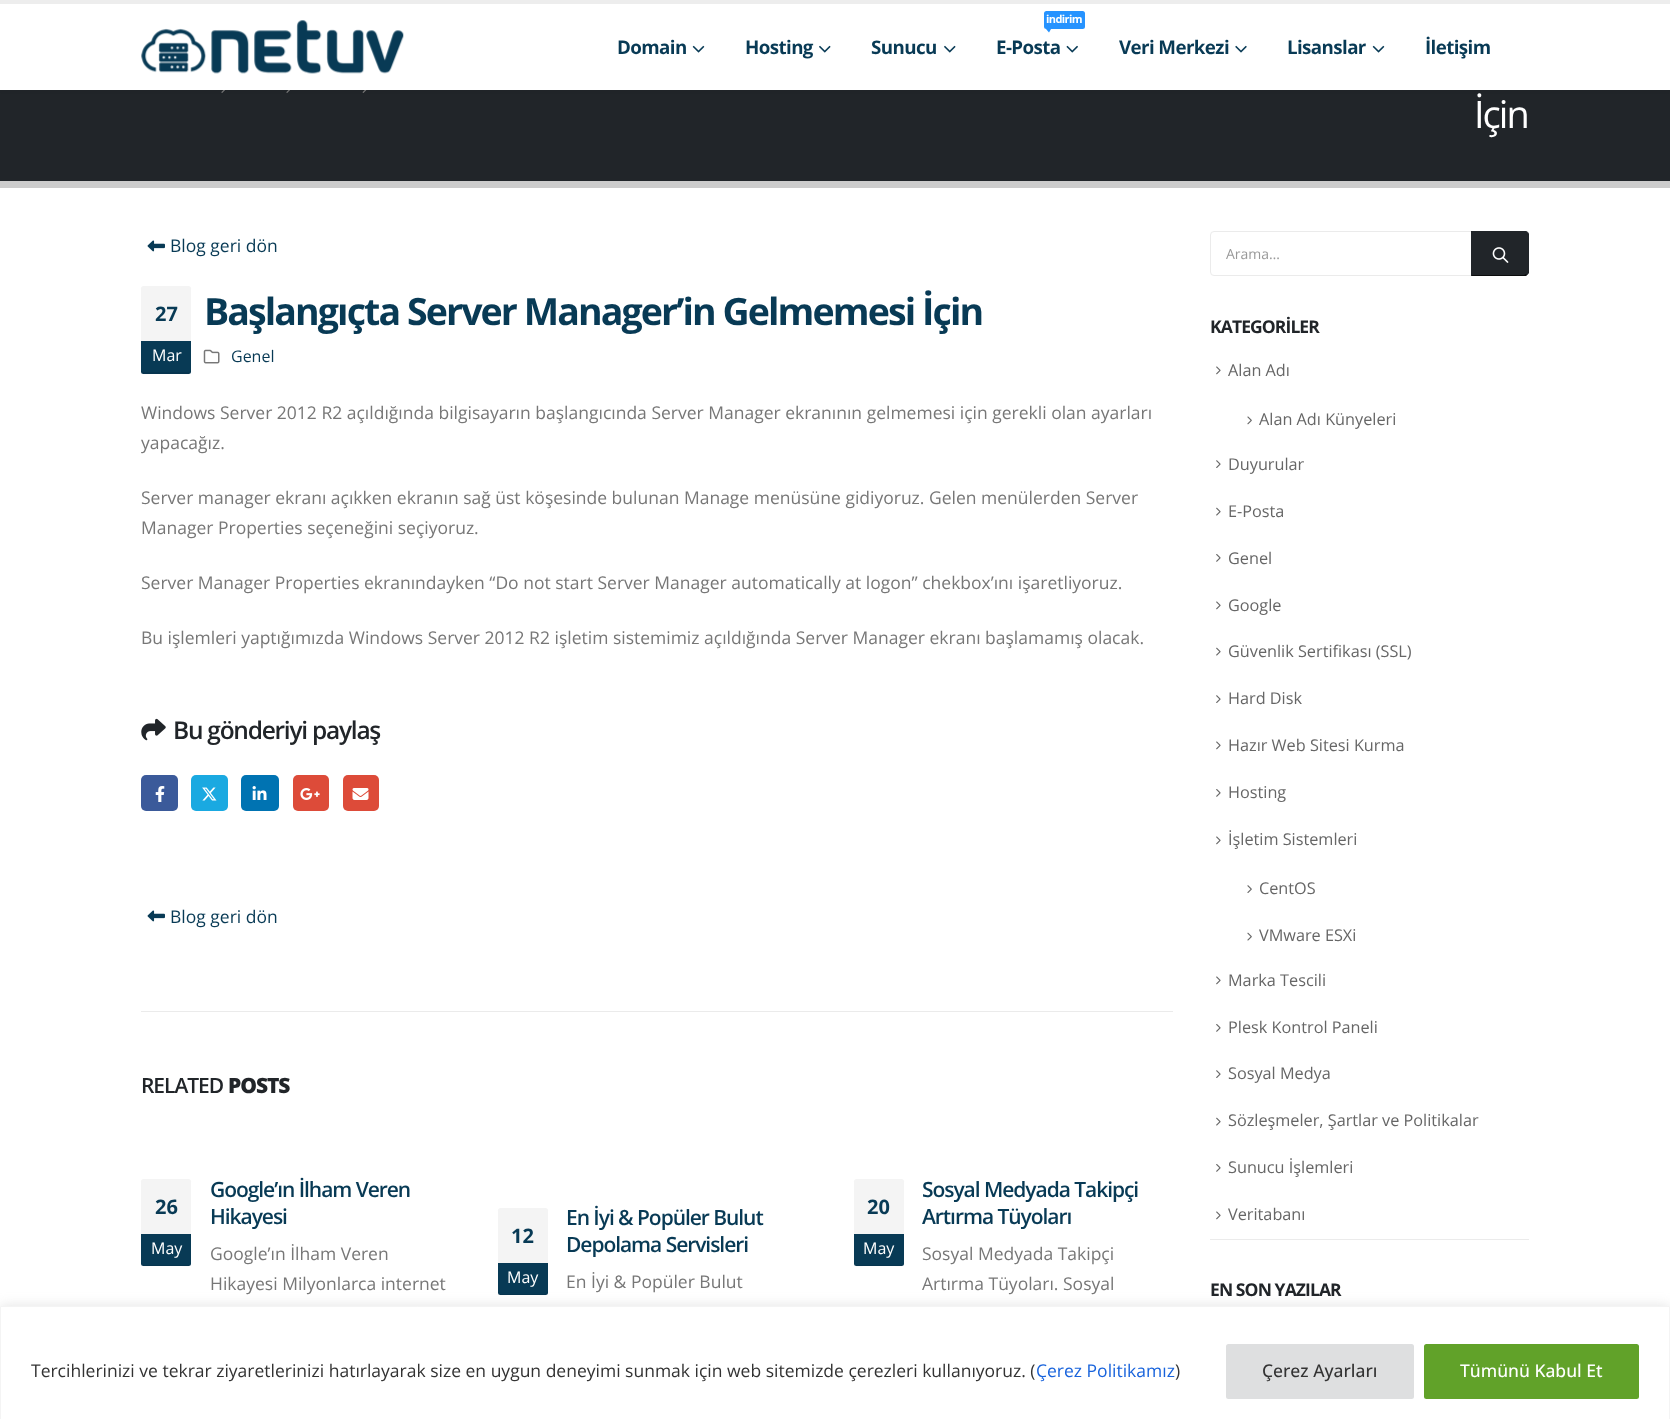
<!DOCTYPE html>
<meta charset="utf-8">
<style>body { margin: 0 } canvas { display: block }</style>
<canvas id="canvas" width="1670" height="1419"></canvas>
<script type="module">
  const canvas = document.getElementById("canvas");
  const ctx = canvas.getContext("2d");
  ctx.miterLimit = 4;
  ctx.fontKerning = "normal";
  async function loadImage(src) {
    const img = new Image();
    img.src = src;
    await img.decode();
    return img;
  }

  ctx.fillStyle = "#ffffff";
  ctx.fillRect(0, 0, 1670, 1419);
  ctx.fillStyle = "#212529";
  ctx.fillRect(0, 90, 1670, 91);
  ctx.drawImage(await loadImage("img6.png"), 221, 90, 4, 3);
  ctx.drawImage(await loadImage("img6.png"), 286, 90, 4, 3);
  ctx.drawImage(await loadImage("img7.png"), 362, 90, 5, 3);
  ctx.fillStyle = "rgba(0, 0, 0, 0.06)";
  ctx.filter = "blur(2px)";
  ctx.beginPath();
  ctx.rect(0, 0, 1670, 90);
  ctx.fill();
  ctx.filter = "none";
  ctx.fillStyle = "#ffffff";
  ctx.fillRect(0, 4, 1670, 86);
  ctx.fillStyle = "#ededed";
  ctx.fillRect(0, 0, 1670, 4);
  ctx.drawImage(await loadImage("img1.png"), 141, 20, 263, 54);
  ctx.letterSpacing = "-0.6px";
  ctx.font = "bold 18.75px Open Sans";
  ctx.fillStyle = "#083a55";
  ctx.fillText("Domain", 617, 54);
  ctx.drawImage(await loadImage("img2.png"), 692, 45, 13, 8);
  ctx.fillText("Hosting", 745, 54);
  ctx.drawImage(await loadImage("img3.png"), 819, 45, 12, 8);
  ctx.fillText("Sunucu", 871, 54);
  ctx.drawImage(await loadImage("img3.png"), 944, 45, 12, 8);
  ctx.fillStyle = "#2693ff";
  ctx.beginPath();
  ctx.roundRect(1044, 11, 41, 18, 2.5);
  ctx.fill();
  ctx.font = "bold 11px Open Sans";
  ctx.fillStyle = "#ffffff";
  ctx.fillText("indirim", 1046, 23);
  ctx.fillStyle = "#2693ff";
  ctx.beginPath();
  ctx.moveTo(1046, 29);
  ctx.lineTo(1051, 29);
  ctx.lineTo(1049, 32.5);
  ctx.closePath();
  ctx.fill();
  ctx.font = "bold 18.75px Open Sans";
  ctx.fillStyle = "#083a55";
  ctx.fillText("E-Posta", 996, 54);
  ctx.drawImage(await loadImage("img4.png"), 1066, 45, 12, 8);
  ctx.fillText("Veri Merkezi", 1119, 54);
  ctx.drawImage(await loadImage("img5.png"), 1235, 45, 12, 8);
  ctx.fillText("Lisanslar", 1287, 54);
  ctx.drawImage(await loadImage("img2.png"), 1372, 45, 13, 8);
  ctx.fillText("İletişim", 1425, 54);
  ctx.fillStyle = "#cccccc";
  ctx.fillRect(0, 181, 1670, 7);
  ctx.letterSpacing = "-2px";
  ctx.font = "38px Open Sans";
  ctx.fillStyle = "#ffffff";
  ctx.fillText("İçin", 1474, 128);
  ctx.drawImage(await loadImage("img8.png"), 147, 240, 18, 12);
  ctx.letterSpacing = "0px";
  ctx.font = "17.5px Open Sans";
  ctx.fillStyle = "#083a55";
  ctx.fillText("Blog geri dön", 170, 252);
  ctx.letterSpacing = "-1.9px";
  ctx.font = "bold 37.5px Open Sans";
  ctx.fillText("Başlangıçta Server Manager’in Gelmemesi İçin", 204, 325);
  ctx.drawImage(await loadImage("img9.png"), 203, 349, 17, 15);
  ctx.letterSpacing = "0px";
  ctx.font = "16px Open Sans";
  ctx.fillText("Genel", 231, 362);
  ctx.font = "17.5px Open Sans";
  ctx.fillStyle = "#777777";
  ctx.fillText("Windows Server 2012 R2 açıldığında bilgisayarın başlangıcında Server Manager ekranının gelmemesi için gerekli olan ayarları", 141, 419);
  ctx.fillText("yapacağız.", 141, 449);
  ctx.fillText("Server manager ekranı açıkken ekranın sağ üst köşesinde bulunan Manage menüsüne gidiyoruz. Gelen menülerden Server", 141, 504);
  ctx.fillText("Manager Properties seçeneğini seçiyoruz.", 141, 534);
  ctx.fillText("Server Manager Properties ekranındayken “Do not start Server Manager automatically at logon” chekbox’ını işaretliyoruz.", 141, 589);
  ctx.fillText("Bu işlemleri yaptığımızda Windows Server 2012 R2 işletim sistemimiz açıldığında Server Manager ekranı başlamamış olacak.", 141, 644);
  ctx.fillStyle = "#f4f4f4";
  ctx.beginPath();
  ctx.roundRect(141, 286, 50, 55, [2.5, 2.5, 0, 0]);
  ctx.fill();
  ctx.font = "bold 20px Open Sans";
  ctx.fillStyle = "#083a55";
  ctx.fillText("27", 155, 321);
  ctx.beginPath();
  ctx.roundRect(141, 341, 50, 33, [0, 0, 2.5, 2.5]);
  ctx.fill();
  ctx.fillStyle = "rgba(0, 0, 0, 0.07)";
  ctx.beginPath();
  ctx.moveTo(141, 370);
  ctx.bezierCurveTo(141, 376, 146, 374, 151, 374);
  ctx.lineTo(181, 374);
  ctx.bezierCurveTo(186, 374, 191, 376, 191, 370);
  ctx.bezierCurveTo(191, 371, 190, 372, 189, 372);
  ctx.lineTo(144, 372);
  ctx.bezierCurveTo(142, 372, 141, 371, 141, 370);
  ctx.closePath();
  ctx.fill();
  ctx.font = "16px Open Sans";
  ctx.fillStyle = "#ffffff";
  ctx.fillText("Mar", 152, 361);
  ctx.drawImage(await loadImage("img10.png"), 141, 718, 25, 23);
  ctx.letterSpacing = "-1.25px";
  ctx.font = "600 24.5px Open Sans";
  ctx.fillStyle = "#212529";
  ctx.fillText("Bu gönderiyi paylaş", 173, 739);
  ctx.fillStyle = "#3b5a9a";
  ctx.beginPath();
  ctx.roundRect(141, 775, 37, 36, 5);
  ctx.fill();
  ctx.drawImage(await loadImage("img11.png"), 155, 786, 10, 16);
  ctx.fillStyle = "#1aa9e1";
  ctx.beginPath();
  ctx.roundRect(191, 775, 37, 36, 5);
  ctx.fill();
  ctx.drawImage(await loadImage("img12.png"), 202, 787, 15, 14);
  ctx.fillStyle = "#0073b2";
  ctx.beginPath();
  ctx.roundRect(241, 775, 38, 36, 5);
  ctx.fill();
  ctx.drawImage(await loadImage("img13.png"), 252, 786, 15, 14);
  ctx.fillStyle = "#dd4b39";
  ctx.beginPath();
  ctx.roundRect(293, 775, 36, 36, 5);
  ctx.fill();
  ctx.drawImage(await loadImage("img14.png"), 300, 788, 20, 12);
  ctx.beginPath();
  ctx.roundRect(343, 775, 36, 36, 5);
  ctx.fill();
  ctx.drawImage(await loadImage("img15.png"), 352, 788, 17, 12);
  ctx.drawImage(await loadImage("img8.png"), 147, 910, 18, 12);
  ctx.letterSpacing = "0px";
  ctx.font = "17.5px Open Sans";
  ctx.fillStyle = "#083a55";
  ctx.fillText("Blog geri dön", 170, 923);
  ctx.fillStyle = "#ebebeb";
  ctx.fillRect(141, 1011, 1032, 1);
  ctx.letterSpacing = "-1.05px";
  ctx.font = "600 21px Open Sans";
  ctx.fillStyle = "#212529";
  ctx.fillText("RELATED", 141, 1093);
  ctx.font = "800 21px Open Sans";
  ctx.fillText("POSTS", 228, 1093);
  ctx.fillStyle = "#f4f4f4";
  ctx.beginPath();
  ctx.roundRect(141, 1179, 50, 55, [2.5, 2.5, 0, 0]);
  ctx.fill();
  ctx.letterSpacing = "0px";
  ctx.font = "bold 20px Open Sans";
  ctx.fillStyle = "#083a55";
  ctx.fillText("26", 155, 1214);
  ctx.beginPath();
  ctx.roundRect(141, 1234, 50, 32, [0, 0, 2.5, 2.5]);
  ctx.fill();
  ctx.fillStyle = "rgba(0, 0, 0, 0.07)";
  ctx.beginPath();
  ctx.moveTo(141, 1262);
  ctx.bezierCurveTo(141, 1268, 146, 1266, 151, 1266);
  ctx.lineTo(181, 1266);
  ctx.bezierCurveTo(186, 1266, 191, 1268, 191, 1262);
  ctx.bezierCurveTo(191, 1264, 190, 1265, 189, 1265);
  ctx.lineTo(144, 1265);
  ctx.bezierCurveTo(142, 1265, 141, 1264, 141, 1262);
  ctx.closePath();
  ctx.fill();
  ctx.font = "16px Open Sans";
  ctx.fillStyle = "#ffffff";
  ctx.fillText("May", 151, 1254);
  ctx.letterSpacing = "-1.05px";
  ctx.font = "600 21px Open Sans";
  ctx.fillStyle = "#083a55";
  ctx.fillText("Google’ın İlham Veren", 210, 1197);
  ctx.fillText("Hikayesi", 210, 1224);
  ctx.letterSpacing = "0px";
  ctx.font = "17.5px Open Sans";
  ctx.fillStyle = "#777777";
  ctx.fillText("Google’ın İlham Veren", 210, 1260);
  ctx.fillText("Hikayesi Milyonlarca internet", 210, 1290);
  ctx.fillStyle = "#f4f4f4";
  ctx.beginPath();
  ctx.roundRect(498, 1208, 50, 55, [2.5, 2.5, 0, 0]);
  ctx.fill();
  ctx.font = "bold 20px Open Sans";
  ctx.fillStyle = "#083a55";
  ctx.fillText("12", 511, 1243);
  ctx.beginPath();
  ctx.roundRect(498, 1263, 50, 32, [0, 0, 2.5, 2.5]);
  ctx.fill();
  ctx.fillStyle = "rgba(0, 0, 0, 0.07)";
  ctx.beginPath();
  ctx.moveTo(498, 1291);
  ctx.bezierCurveTo(498, 1297, 503, 1295, 508, 1295);
  ctx.lineTo(538, 1295);
  ctx.bezierCurveTo(543, 1295, 548, 1297, 548, 1291);
  ctx.bezierCurveTo(548, 1293, 546, 1294, 545, 1294);
  ctx.lineTo(500, 1294);
  ctx.bezierCurveTo(499, 1294, 498, 1293, 498, 1291);
  ctx.closePath();
  ctx.fill();
  ctx.font = "16px Open Sans";
  ctx.fillStyle = "#ffffff";
  ctx.fillText("May", 507, 1283);
  ctx.letterSpacing = "-1.05px";
  ctx.font = "600 21px Open Sans";
  ctx.fillStyle = "#083a55";
  ctx.fillText("En İyi & Popüler Bulut", 566, 1225);
  ctx.fillText("Depolama Servisleri", 566, 1252);
  ctx.letterSpacing = "0px";
  ctx.font = "17.5px Open Sans";
  ctx.fillStyle = "#777777";
  ctx.fillText("En İyi & Popüler Bulut", 566, 1288);
  ctx.fillStyle = "#f4f4f4";
  ctx.beginPath();
  ctx.roundRect(854, 1179, 50, 55, [2.5, 2.5, 0, 0]);
  ctx.fill();
  ctx.font = "bold 20px Open Sans";
  ctx.fillStyle = "#083a55";
  ctx.fillText("20", 867, 1214);
  ctx.beginPath();
  ctx.roundRect(854, 1234, 50, 32, [0, 0, 2.5, 2.5]);
  ctx.fill();
  ctx.fillStyle = "rgba(0, 0, 0, 0.07)";
  ctx.beginPath();
  ctx.moveTo(854, 1262);
  ctx.bezierCurveTo(854, 1268, 859, 1266, 864, 1266);
  ctx.lineTo(894, 1266);
  ctx.bezierCurveTo(899, 1266, 904, 1268, 904, 1262);
  ctx.bezierCurveTo(904, 1264, 903, 1265, 901, 1265);
  ctx.lineTo(856, 1265);
  ctx.bezierCurveTo(855, 1265, 854, 1264, 854, 1262);
  ctx.closePath();
  ctx.fill();
  ctx.font = "16px Open Sans";
  ctx.fillStyle = "#ffffff";
  ctx.fillText("May", 863, 1254);
  ctx.letterSpacing = "-1.05px";
  ctx.font = "600 21px Open Sans";
  ctx.fillStyle = "#083a55";
  ctx.fillText("Sosyal Medyada Takipçi", 922, 1197);
  ctx.fillText("Artırma Tüyoları", 922, 1224);
  ctx.letterSpacing = "0px";
  ctx.font = "17.5px Open Sans";
  ctx.fillStyle = "#777777";
  ctx.fillText("Sosyal Medyada Takipçi", 922, 1260);
  ctx.fillText("Artırma Tüyoları. Sosyal", 922, 1290);
  ctx.beginPath();
  ctx.roundRect(1210.5, 231.5, 262, 44, [3.5, 0, 0, 3.5]);
  ctx.strokeStyle = "#ebebeb";
  ctx.stroke();
  ctx.font = "14px Open Sans";
  ctx.fillStyle = "#999999";
  ctx.fillText("Arama…", 1226, 259);
  ctx.fillStyle = "#212529";
  ctx.beginPath();
  ctx.roundRect(1471, 231, 58, 45, [0, 5, 5, 0]);
  ctx.fill();
  ctx.beginPath();
  ctx.moveTo(1472, 232);
  ctx.lineTo(1471, 231);
  ctx.lineTo(1526, 231);
  ctx.lineTo(1528, 232);
  ctx.lineTo(1527, 233);
  ctx.lineTo(1524, 232);
  ctx.closePath();
  ctx.fill();
  ctx.beginPath();
  ctx.moveTo(1529, 273);
  ctx.lineTo(1527, 275);
  ctx.lineTo(1526, 274);
  ctx.bezierCurveTo(1527, 273, 1528, 272, 1528, 271);
  ctx.lineTo(1528, 236);
  ctx.bezierCurveTo(1528, 235, 1528, 234, 1527, 233);
  ctx.lineTo(1528, 232);
  ctx.lineTo(1529, 234);
  ctx.closePath();
  ctx.fill();
  ctx.fillStyle = "#0b0c0d";
  ctx.beginPath();
  ctx.moveTo(1527, 275);
  ctx.bezierCurveTo(1527, 276, 1525, 276, 1524, 276);
  ctx.lineTo(1472, 276);
  ctx.lineTo(1472, 275);
  ctx.lineTo(1524, 275);
  ctx.lineTo(1526, 274);
  ctx.closePath();
  ctx.fill();
  ctx.drawImage(await loadImage("img16.png"), 1492, 247, 17, 16);
  ctx.letterSpacing = "-0.9px";
  ctx.font = "bold 17.5px Open Sans";
  ctx.fillStyle = "#212529";
  ctx.fillText("KATEGORİLER", 1210, 333);
  ctx.fillStyle = "#ebebeb";
  ctx.fillRect(1210, 1239, 319, 1);
  ctx.drawImage(await loadImage("img17.png"), 1216, 366, 5, 9);
  ctx.letterSpacing = "0px";
  ctx.font = "16.25px Open Sans";
  ctx.fillStyle = "#666666";
  ctx.fillText("Alan Adı", 1228, 376);
  ctx.drawImage(await loadImage("img18.png"), 1247, 416, 5, 9);
  ctx.fillText("Alan Adı Künyeleri", 1259, 425);
  ctx.drawImage(await loadImage("img19.png"), 1216, 460, 5, 8);
  ctx.fillText("Duyurular", 1228, 470);
  ctx.drawImage(await loadImage("img20.png"), 1216, 507, 5, 9);
  ctx.fillText("E-Posta", 1228, 517);
  ctx.drawImage(await loadImage("img21.png"), 1216, 554, 5, 8);
  ctx.fillText("Genel", 1228, 564);
  ctx.drawImage(await loadImage("img17.png"), 1216, 601, 5, 9);
  ctx.fillText("Google", 1228, 611);
  ctx.drawImage(await loadImage("img20.png"), 1216, 647, 5, 9);
  ctx.fillText("Güvenlik Sertifikası (SSL)", 1228, 657);
  ctx.drawImage(await loadImage("img19.png"), 1216, 695, 5, 8);
  ctx.fillText("Hard Disk", 1228, 704);
  ctx.drawImage(await loadImage("img17.png"), 1216, 741, 5, 9);
  ctx.fillText("Hazır Web Sitesi Kurma", 1228, 751);
  ctx.drawImage(await loadImage("img21.png"), 1216, 789, 5, 8);
  ctx.fillText("Hosting", 1228, 798);
  ctx.drawImage(await loadImage("img17.png"), 1216, 836, 5, 9);
  ctx.fillText("İşletim Sistemleri", 1228, 845);
  ctx.drawImage(await loadImage("img22.png"), 1247, 885, 5, 8);
  ctx.fillText("CentOS", 1259, 894);
  ctx.drawImage(await loadImage("img23.png"), 1247, 932, 5, 9);
  ctx.fillText("VMware ESXi", 1259, 941);
  ctx.drawImage(await loadImage("img17.png"), 1216, 976, 5, 9);
  ctx.fillText("Marka Tescili", 1228, 986);
  ctx.drawImage(await loadImage("img21.png"), 1216, 1024, 5, 8);
  ctx.fillText("Plesk Kontrol Paneli", 1228, 1033);
  ctx.drawImage(await loadImage("img19.png"), 1216, 1070, 5, 8);
  ctx.fillText("Sosyal Medya", 1228, 1079);
  ctx.drawImage(await loadImage("img20.png"), 1216, 1117, 5, 9);
  ctx.fillText("Sözleşmeler, Şartlar ve Politikalar", 1228, 1126);
  ctx.drawImage(await loadImage("img21.png"), 1216, 1164, 5, 8);
  ctx.fillText("Sunucu İşlemleri", 1228, 1173);
  ctx.drawImage(await loadImage("img17.png"), 1216, 1211, 5, 9);
  ctx.fillText("Veritabanı", 1228, 1220);
  ctx.letterSpacing = "-0.9px";
  ctx.font = "bold 17.5px Open Sans";
  ctx.fillStyle = "#212529";
  ctx.fillText("EN SON YAZILAR", 1210, 1296);
  ctx.fillStyle = "rgba(172, 171, 171, 0.3)";
  ctx.filter = "blur(6px)";
  ctx.beginPath();
  ctx.rect(0, 1305, 1670, 114);
  ctx.fill();
  ctx.filter = "none";
  ctx.fillStyle = "#ffffff";
  ctx.beginPath();
  ctx.rect(0.5, 1306.5, 1669, 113);
  ctx.fill();
  ctx.strokeStyle = "#f4f4f4";
  ctx.stroke();
  ctx.letterSpacing = "0px";
  ctx.font = "17.5px Open Sans";
  ctx.fillStyle = "#333333";
  ctx.fillText("Tercihlerinizi ve tekrar ziyaretlerinizi hatırlayarak size en uygun deneyimi sunmak için web sitemizde çerezleri kullanıyoruz. (", 31, 1377);
  ctx.fillStyle = "#1863dc";
  ctx.fillText("Çerez Politikamız", 1036, 1377);
  ctx.fillStyle = "#333333";
  ctx.fillText(")", 1175, 1377);
  ctx.fillStyle = "#dedfe0";
  ctx.beginPath();
  ctx.roundRect(1227.5, 1345.5, 185, 52, 1);
  ctx.fill();
  ctx.strokeStyle = "#dedfe0";
  ctx.lineWidth = 3;
  ctx.stroke();
  ctx.font = "500 17.5px Open Sans";
  ctx.fillStyle = "#333333";
  ctx.fillText("Çerez Ayarları", 1262, 1377);
  ctx.fillStyle = "#61a229";
  ctx.beginPath();
  ctx.roundRect(1425.5, 1345.5, 212, 52, 1);
  ctx.fill();
  ctx.strokeStyle = "#61a229";
  ctx.stroke();
  ctx.fillStyle = "#ffffff";
  ctx.fillText("Tümünü Kabul Et", 1460, 1377);
</script>
